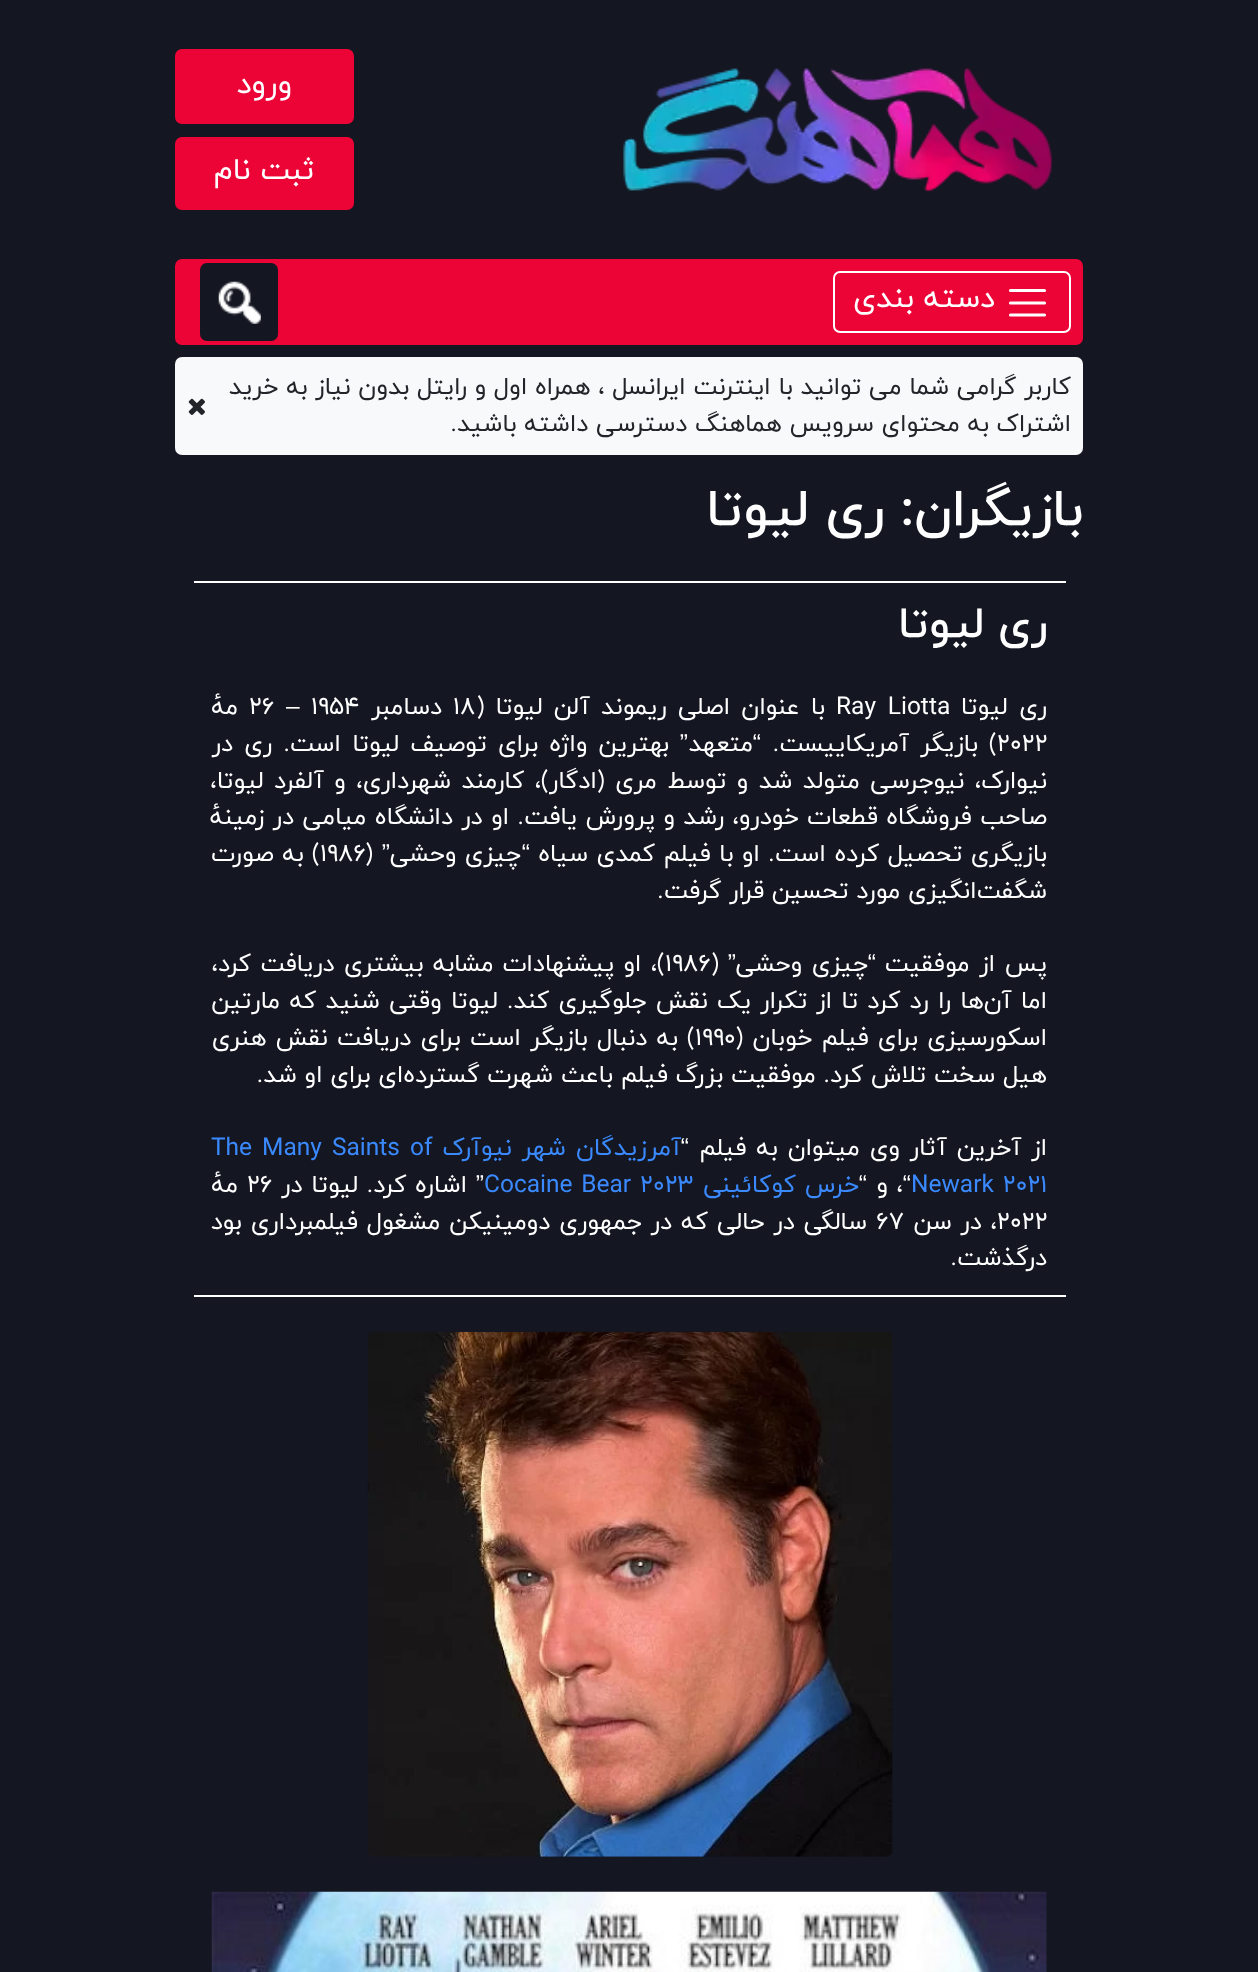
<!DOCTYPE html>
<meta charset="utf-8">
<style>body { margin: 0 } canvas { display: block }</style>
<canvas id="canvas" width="1258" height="1972"></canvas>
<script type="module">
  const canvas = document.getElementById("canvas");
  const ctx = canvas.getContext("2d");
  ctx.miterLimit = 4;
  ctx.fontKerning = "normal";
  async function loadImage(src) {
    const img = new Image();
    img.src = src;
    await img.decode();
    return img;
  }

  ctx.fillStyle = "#141622";
  ctx.fillRect(0, 0, 1258, 1972);
  ctx.drawImage(await loadImage("img1.png"), 623, 68, 429, 125);
  ctx.fillStyle = "#ec0437";
  ctx.beginPath();
  ctx.roundRect(176, 50, 177, 73, 6);
  ctx.fill();
  ctx.strokeStyle = "#ec0437";
  ctx.lineWidth = 2;
  ctx.stroke();
  ctx.direction = "rtl";
  ctx.font = "30.5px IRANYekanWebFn";
  ctx.fillStyle = "#ffffff";
  ctx.fillText("ورود", 292, 93);
  ctx.fillStyle = "#ec0437";
  ctx.beginPath();
  ctx.roundRect(176, 138, 177, 71, 6);
  ctx.fill();
  ctx.stroke();
  ctx.fillStyle = "#ffffff";
  ctx.fillText("ثبت نام", 314, 179);
  ctx.fillStyle = "#ec0437";
  ctx.beginPath();
  ctx.roundRect(175, 259, 908, 86, 7);
  ctx.fill();
  ctx.beginPath();
  ctx.roundRect(834, 272, 236, 60, 6);
  ctx.strokeStyle = "#ffffff";
  ctx.stroke();
  ctx.beginPath();
  ctx.moveTo(1010.5, 290.5);
  ctx.lineTo(1044.5, 290.5);
  ctx.moveTo(1010.5, 303);
  ctx.lineTo(1044.5, 303);
  ctx.moveTo(1010.5, 315);
  ctx.lineTo(1044.5, 315);
  ctx.lineWidth = 3.1;
  ctx.lineCap = "round";
  ctx.stroke();
  ctx.fillStyle = "#ffffff";
  ctx.fillText("دسته بندی", 995, 307);
  ctx.fillStyle = "#141622";
  ctx.beginPath();
  ctx.roundRect(200, 263, 78, 78, 7);
  ctx.fill();
  ctx.drawImage(await loadImage("img2.png"), 218, 281, 43, 43);
  ctx.fillStyle = "#f8f9fa";
  ctx.beginPath();
  ctx.roundRect(175, 357, 908, 98, 7);
  ctx.fill();
  ctx.font = "24.5px IRANYekanWebFn";
  ctx.fillStyle = "#212529";
  ctx.fillText("کاربر گرامی شما می توانید با اینترنت ایرانسل ، همراه اول و رایتل بدون نیاز به خرید", 1071, 394);
  ctx.fillText("اشتراک به محتوای سرویس هماهنگ دسترسی داشته باشید.", 1071, 431);
  ctx.drawImage(await loadImage("img3.png"), 188, 398, 17, 17);
  ctx.font = "500 52.5px IRANYekanWebFn";
  ctx.fillStyle = "#ffffff";
  ctx.fillText("بازیگران:", 1083, 525);
  ctx.fillText("ری لیوتا", 884, 525);
  ctx.fillRect(194, 581, 872, 2);
  ctx.fillRect(194, 1295, 872, 2);
  ctx.font = "500 44px IRANYekanWebFn";
  ctx.fillText("ری لیوتا", 1047, 637);
  ctx.wordSpacing = "4px";
  ctx.font = "24.5px IRANYekanWebFn";
  ctx.fillText("ری لیوتا", 1047, 714);
  ctx.direction = "ltr";
  ctx.fillText("Ray Liotta", 836, 714);
  ctx.wordSpacing = "3.5px";
  ctx.direction = "rtl";
  ctx.fillText("با عنوان اصلی ریموند آلن لیوتا (", 825, 714);
  ctx.wordSpacing = "0px";
  ctx.direction = "ltr";
  ctx.fillText("۱۸", 453, 714);
  ctx.direction = "rtl";
  ctx.fillText("دسامبر", 442, 714);
  ctx.direction = "ltr";
  ctx.fillText("۱۹۵۴", 311, 714);
  ctx.font = "24.5px Liberation Sans";
  ctx.fillText("–", 286, 714);
  ctx.font = "24.5px IRANYekanWebFn";
  ctx.fillText("۲۶", 249, 714);
  ctx.direction = "rtl";
  ctx.fillText("مهٔ", 238, 714);
  ctx.direction = "ltr";
  ctx.fillText("۲۰۲۲", 997, 751);
  ctx.wordSpacing = "3.5px";
  ctx.direction = "rtl";
  ctx.fillText(") بازیگر آمریکاییست.", 997, 751);
  ctx.wordSpacing = "0px";
  ctx.font = "24.5px Liberation Sans";
  ctx.fillText("“", 761, 751);
  ctx.font = "24.5px IRANYekanWebFn";
  ctx.fillText("متعهد", 753, 751);
  ctx.font = "24.5px Liberation Sans";
  ctx.fillText("”", 688, 751);
  ctx.wordSpacing = "3.5px";
  ctx.font = "24.5px IRANYekanWebFn";
  ctx.fillText("بهترین واژه برای توصیف لیوتا است. ری در", 669, 751);
  ctx.wordSpacing = "2.75px";
  ctx.fillText("نیوارک، نیوجرسی متولد شد و توسط مری (ادگار)، کارمند شهرداری، و آلفرد لیوتا،", 1047, 788);
  ctx.wordSpacing = "0.75px";
  ctx.fillText("صاحب فروشگاه قطعات خودرو، رشد و پرورش یافت. او در دانشگاه میامی در زمینهٔ", 1047, 824);
  ctx.fillText("بازیگری تحصیل کرده است. او با فیلم کمدی سیاه", 1047, 861);
  ctx.wordSpacing = "0px";
  ctx.font = "24.5px Liberation Sans";
  ctx.fillText("“", 530, 861);
  ctx.wordSpacing = "0.75px";
  ctx.font = "24.5px IRANYekanWebFn";
  ctx.fillText("چیزی وحشی", 521, 861);
  ctx.wordSpacing = "0px";
  ctx.font = "24.5px Liberation Sans";
  ctx.fillText("”", 390, 861);
  ctx.font = "24.5px IRANYekanWebFn";
  ctx.fillText("(", 373, 861);
  ctx.direction = "ltr";
  ctx.fillText("۱۹۸۶", 320, 861);
  ctx.wordSpacing = "0.75px";
  ctx.direction = "rtl";
  ctx.fillText(") به صورت", 320, 861);
  ctx.wordSpacing = "0px";
  ctx.fillText("شگفت‌انگیزی مورد تحسین قرار گرفت.", 1047, 898);
  ctx.wordSpacing = "2px";
  ctx.fillText("پس از موفقیت", 1047, 971);
  ctx.wordSpacing = "0px";
  ctx.font = "24.5px Liberation Sans";
  ctx.fillText("“", 876, 971);
  ctx.wordSpacing = "2px";
  ctx.font = "24.5px IRANYekanWebFn";
  ctx.fillText("چیزی وحشی", 868, 971);
  ctx.wordSpacing = "0px";
  ctx.font = "24.5px Liberation Sans";
  ctx.fillText("”", 736, 971);
  ctx.font = "24.5px IRANYekanWebFn";
  ctx.fillText("(", 719, 971);
  ctx.direction = "ltr";
  ctx.fillText("۱۹۸۶", 665, 971);
  ctx.wordSpacing = "1.5px";
  ctx.direction = "rtl";
  ctx.fillText(")، او پیشنهادات مشابه بیشتری دریافت کرد،", 665, 971);
  ctx.fillText("اما آن‌ها را رد کرد تا از تکرار یک نقش جلوگیری کند. لیوتا وقتی شنید که مارتین", 1047, 1008);
  ctx.fillText("اسکورسیزی برای فیلم خوبان (", 1047, 1045);
  ctx.wordSpacing = "0px";
  ctx.direction = "ltr";
  ctx.fillText("۱۹۹۰", 695, 1045);
  ctx.wordSpacing = "1.5px";
  ctx.direction = "rtl";
  ctx.fillText(") به دنبال بازیگر است برای دریافت نقش هنری", 695, 1045);
  ctx.wordSpacing = "0px";
  ctx.fillText("هیل سخت تلاش کرد. موفقیت بزرگ فیلم باعث شهرت گسترده‌ای برای او شد.", 1047, 1082);
  ctx.wordSpacing = "2.25px";
  ctx.fillText("از آخرین آثار وی میتوان به فیلم", 1047, 1155);
  ctx.wordSpacing = "0px";
  ctx.font = "24.5px Liberation Sans";
  ctx.fillText("“", 689, 1155);
  ctx.wordSpacing = "2.25px";
  ctx.font = "24.5px IRANYekanWebFn";
  ctx.fillStyle = "#3a89fd";
  ctx.fillText("آمرزیدگان شهر نیوآرک", 681, 1155);
  ctx.direction = "ltr";
  ctx.fillText("The Many Saints of", 211, 1155);
  ctx.wordSpacing = "1px";
  ctx.fillText("Newark 2021", 911, 1192);
  ctx.wordSpacing = "0px";
  ctx.direction = "rtl";
  ctx.font = "24.5px Liberation Sans";
  ctx.fillStyle = "#ffffff";
  ctx.fillText("“", 911, 1192);
  ctx.fillText("“", 867, 1192);
  ctx.wordSpacing = "1px";
  ctx.font = "24.5px IRANYekanWebFn";
  ctx.fillStyle = "#3a89fd";
  ctx.fillText("خرس کوکائینی", 859, 1192);
  ctx.direction = "ltr";
  ctx.fillText("Cocaine Bear 2023", 484, 1192);
  ctx.wordSpacing = "0px";
  ctx.direction = "rtl";
  ctx.font = "24.5px Liberation Sans";
  ctx.fillStyle = "#ffffff";
  ctx.fillText("”", 484, 1192);
  ctx.wordSpacing = "1px";
  ctx.font = "24.5px IRANYekanWebFn";
  ctx.fillText("اشاره کرد. لیوتا در", 467, 1192);
  ctx.wordSpacing = "0px";
  ctx.direction = "ltr";
  ctx.fillText("۲۶", 247, 1192);
  ctx.direction = "rtl";
  ctx.fillText("مهٔ", 238, 1192);
  ctx.wordSpacing = "1px";
  ctx.fillText("، و", 903, 1192);
  ctx.wordSpacing = "0px";
  ctx.direction = "ltr";
  ctx.fillText("۲۰۲۲", 997, 1229);
  ctx.wordSpacing = "1px";
  ctx.direction = "rtl";
  ctx.fillText("، در سن", 997, 1229);
  ctx.wordSpacing = "0px";
  ctx.direction = "ltr";
  ctx.fillText("۶۷", 876, 1229);
  ctx.wordSpacing = "1.25px";
  ctx.direction = "rtl";
  ctx.fillText("سالگی در حالی که در جمهوری دومینیکن مشغول فیلمبرداری بود", 867, 1229);
  ctx.wordSpacing = "0px";
  ctx.fillText("درگذشت.", 1047, 1265);
  ctx.drawImage(await loadImage("img4.png"), 367, 1331, 526, 526);
  ctx.drawImage(await loadImage("img5.png"), 211, 1891, 836, 81);
</script>
